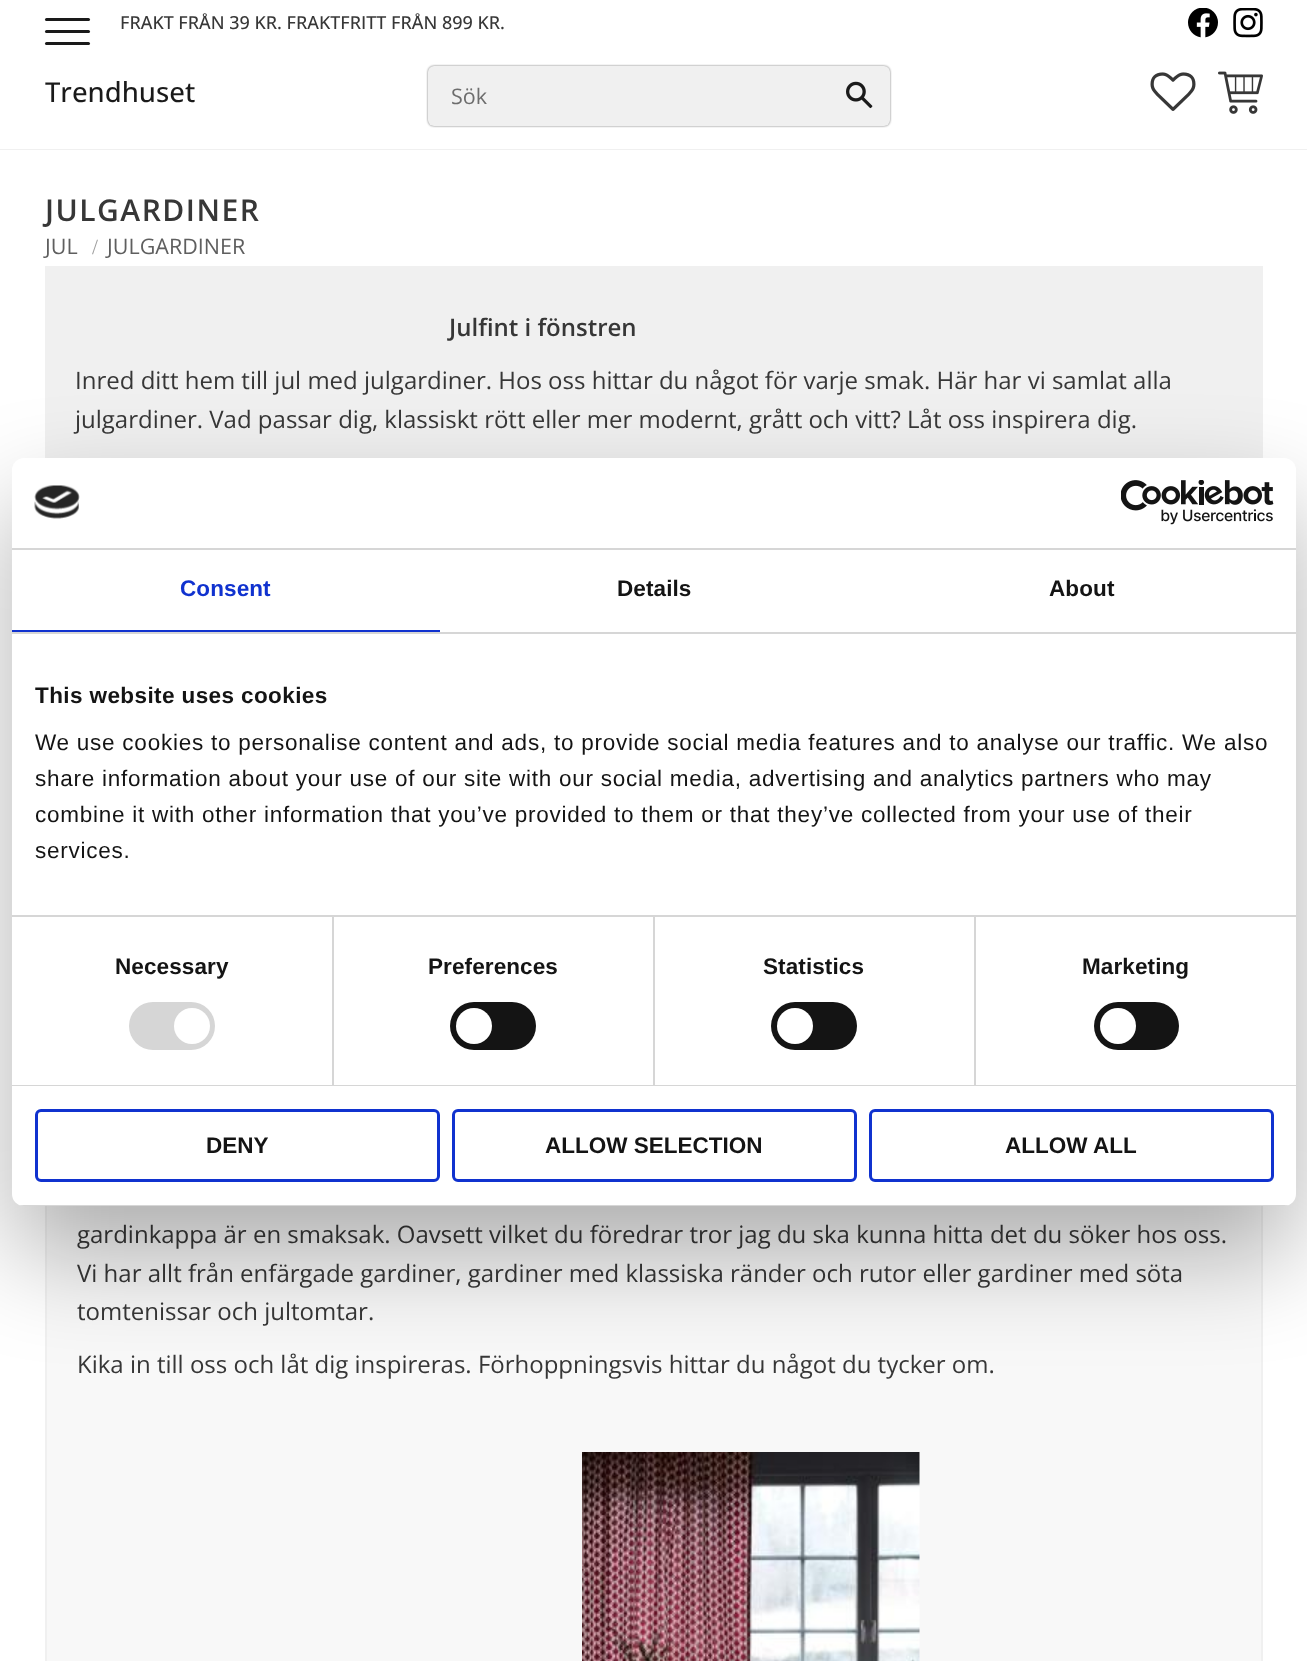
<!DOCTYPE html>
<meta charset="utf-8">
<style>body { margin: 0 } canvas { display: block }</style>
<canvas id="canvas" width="1307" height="1661"></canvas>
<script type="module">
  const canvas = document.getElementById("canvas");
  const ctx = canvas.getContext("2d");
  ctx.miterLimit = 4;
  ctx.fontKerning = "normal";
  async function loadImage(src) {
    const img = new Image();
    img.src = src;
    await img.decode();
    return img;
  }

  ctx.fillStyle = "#ffffff";
  ctx.fillRect(0, 0, 1307, 1661);
  ctx.strokeStyle = "#f0f0f0";
  ctx.lineWidth = 2;
  ctx.strokeRect(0, 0, 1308, 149);
  ctx.fillRect(0, 0, 1307, 149);
  ctx.font = "500 18px Open Sans";
  ctx.fillStyle = "#373737";
  ctx.fillText("FRAKT FRÅN 39 KR. FRAKTFRITT FRÅN 899 KR.", 120, 29);
  ctx.drawImage(await loadImage("img1.png"), 1188, 8, 30, 30);
  ctx.drawImage(await loadImage("img2.png"), 1233, 8, 30, 30);
  ctx.font = "500 27.5px Open Sans";
  ctx.fillStyle = "#1a1a1a";
  ctx.fillText("Trendhuset", 45, 102);
  ctx.fillStyle = "rgba(26, 26, 26, 0.6)";
  ctx.filter = "blur(1px)";
  ctx.beginPath();
  ctx.roundRect(428, 66, 462, 60, 6);
  ctx.fill();
  ctx.filter = "none";
  ctx.fillStyle = "#f0f0f0";
  ctx.beginPath();
  ctx.roundRect(428, 66, 402, 60, [6, 0, 0, 6]);
  ctx.fill();
  ctx.font = "21.5px Open Sans";
  ctx.fillStyle = "#6d6d6d";
  ctx.fillText("Sök", 451, 104);
  ctx.fillStyle = "#f0f0f0";
  ctx.beginPath();
  ctx.roundRect(830, 66, 60, 60, [0, 6, 6, 0]);
  ctx.fill();
  ctx.drawImage(await loadImage("img3.png"), 846, 81, 27, 28);
  ctx.drawImage(await loadImage("img4.png"), 1150, 72, 46, 39);
  ctx.drawImage(await loadImage("img5.png"), 1218, 71, 45, 43);
  ctx.fillStyle = "#1a1a1a";
  ctx.beginPath();
  ctx.roundRect(45, 30, 45, 3, 1.5);
  ctx.fill();
  ctx.beginPath();
  ctx.roundRect(45, 18, 45, 3, 1.5);
  ctx.fill();
  ctx.beginPath();
  ctx.roundRect(45, 42, 45, 3, 1.5);
  ctx.fill();
  ctx.letterSpacing = "1.5px";
  ctx.font = "600 30px Open Sans";
  ctx.fillStyle = "#373737";
  ctx.fillText("JULGARDINER", 45, 221);
  ctx.letterSpacing = "0px";
  ctx.font = "21.5px Open Sans";
  ctx.fillStyle = "#5f5f5f";
  ctx.fillText("JUL", 45, 254);
  ctx.font = "21.5px Liberation Serif";
  ctx.fillStyle = "#9f9f9f";
  ctx.fillText("/", 92, 254);
  ctx.font = "21.5px Open Sans";
  ctx.fillStyle = "#5f5f5f";
  ctx.fillText("JULGARDINER", 107, 254);
  ctx.fillStyle = "#f0f0f0";
  ctx.fillRect(45, 266, 1218, 192);
  ctx.font = "600 24px Open Sans";
  ctx.fillStyle = "#373737";
  ctx.fillText("Julfint i fönstren", 449, 336);
  ctx.font = "24px Open Sans";
  ctx.fillText("Inred ditt hem till jul med julgardiner. Hos oss hittar du något för varje smak. Här har vi samlat alla", 75, 389);
  ctx.fillText("julgardiner. Vad passar dig, klassiskt rött eller mer modernt, grått och vitt? Låt oss inspirera dig.", 75, 428);
  ctx.fillStyle = "#f8f8f8";
  ctx.fillRect(47, 1206, 1214, 455);
  ctx.strokeRect(46, 1003, 1216, 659);
  ctx.fillStyle = "#373737";
  ctx.fillText("gardinkappa är en smaksak. Oavsett vilket du föredrar tror jag du ska kunna hitta det du söker hos oss.", 77, 1243);
  ctx.fillText("Vi har allt från enfärgade gardiner, gardiner med klassiska ränder och rutor eller gardiner med söta", 77, 1282);
  ctx.fillText("tomtenissar och jultomtar.", 77, 1320);
  ctx.fillText("Kika in till oss och låt dig inspireras. Förhoppningsvis hittar du något du tycker om.", 77, 1373);
  ctx.drawImage(await loadImage("img6.png"), 582, 1452, 338, 209);
  ctx.fillStyle = "rgba(0, 0, 0, 0.3)";
  ctx.filter = "blur(51px)";
  ctx.beginPath();
  ctx.roundRect(12, 506, 1284, 748, 12);
  ctx.fill();
  ctx.filter = "none";
  ctx.fillStyle = "#ffffff";
  ctx.beginPath();
  ctx.roundRect(12, 458, 1284, 748, 12);
  ctx.fill();
  ctx.fillStyle = "#d6d6d6";
  ctx.fillRect(12, 548, 1284, 2);
  ctx.drawImage(await loadImage("img7.png"), 34, 485, 46, 34);
  ctx.drawImage(await loadImage("img8.png"), 1121, 480, 153, 45);
  ctx.fillRect(12, 632, 1284, 2);
  ctx.fillStyle = "#1032cf";
  ctx.fillRect(12, 630, 428, 2);
  ctx.letterSpacing = "0.1px";
  ctx.font = "bold 22.5px Liberation Sans";
  ctx.fillText("Consent", 180, 596);
  ctx.fillStyle = "#141414";
  ctx.fillText("Details", 617, 596);
  ctx.fillText("About", 1049, 596);
  ctx.fillStyle = "#d6d6d6";
  ctx.fillRect(12, 915, 1284, 2);
  ctx.letterSpacing = "0.4px";
  ctx.fillStyle = "#141414";
  ctx.fillText("This website uses cookies", 35, 703);
  ctx.letterSpacing = "0.75px";
  ctx.font = "22.5px Liberation Sans";
  ctx.fillText("We use cookies to personalise content and ads, to provide social media features and to analyse our traffic. We also", 35, 750);
  ctx.fillText("share information about your use of our site with our social media, advertising and analytics partners who may", 35, 786);
  ctx.fillText("combine it with other information that you’ve provided to them or that they’ve collected from your use of their", 35, 822);
  ctx.fillText("services.", 35, 858);
  ctx.fillStyle = "#d6d6d6";
  ctx.fillRect(12, 1085, 1284, 1);
  ctx.fillRect(332, 917, 2, 168);
  ctx.letterSpacing = "0.1px";
  ctx.font = "bold 22.5px Liberation Sans";
  ctx.fillStyle = "#141414";
  ctx.fillText("Necessary", 115, 974);
  ctx.fillStyle = "#d6d6d6";
  ctx.beginPath();
  ctx.roundRect(129, 1002, 86, 48, 24);
  ctx.fill();
  ctx.fillStyle = "#ffffff";
  ctx.beginPath();
  ctx.arc(192, 1026, 18, 0, Math.PI * 2);
  ctx.fill();
  ctx.fillStyle = "#d6d6d6";
  ctx.fillRect(653, 917, 2, 168);
  ctx.fillStyle = "#141414";
  ctx.fillText("Preferences", 428, 974);
  ctx.beginPath();
  ctx.roundRect(450, 1002, 86, 48, 24);
  ctx.fill();
  ctx.fillStyle = "#ffffff";
  ctx.beginPath();
  ctx.arc(474, 1026, 18, 0, Math.PI * 2);
  ctx.fill();
  ctx.fillStyle = "#d6d6d6";
  ctx.fillRect(974, 917, 2, 168);
  ctx.fillStyle = "#141414";
  ctx.fillText("Statistics", 763, 974);
  ctx.beginPath();
  ctx.roundRect(771, 1002, 86, 48, 24);
  ctx.fill();
  ctx.fillStyle = "#ffffff";
  ctx.beginPath();
  ctx.arc(795, 1026, 18, 0, Math.PI * 2);
  ctx.fill();
  ctx.fillStyle = "#141414";
  ctx.fillText("Marketing", 1082, 974);
  ctx.beginPath();
  ctx.roundRect(1094, 1002, 85, 48, 24);
  ctx.fill();
  ctx.fillStyle = "#ffffff";
  ctx.beginPath();
  ctx.arc(1118, 1026, 18, 0, Math.PI * 2);
  ctx.fill();
  ctx.save();
  ctx.beginPath();
  ctx.roundRect(12, 458, 1284, 748, 12);
  ctx.clip();
  ctx.fillStyle = "#d6d6d6";
  ctx.fillRect(12, 1205, 1284, 1);
  ctx.restore();
  ctx.beginPath();
  ctx.roundRect(36.5, 1110.5, 402, 70, 4.5);
  ctx.strokeStyle = "#1032cf";
  ctx.lineWidth = 3;
  ctx.stroke();
  ctx.letterSpacing = "0px";
  ctx.fillStyle = "#141414";
  ctx.fillText("DENY", 206, 1153);
  ctx.beginPath();
  ctx.roundRect(453.5, 1110.5, 402, 70, 4.5);
  ctx.stroke();
  ctx.fillText("ALLOW SELECTION", 545, 1153);
  ctx.beginPath();
  ctx.roundRect(870.5, 1110.5, 402, 70, 4.5);
  ctx.stroke();
  ctx.fillText("ALLOW ALL", 1005, 1153);
</script>
